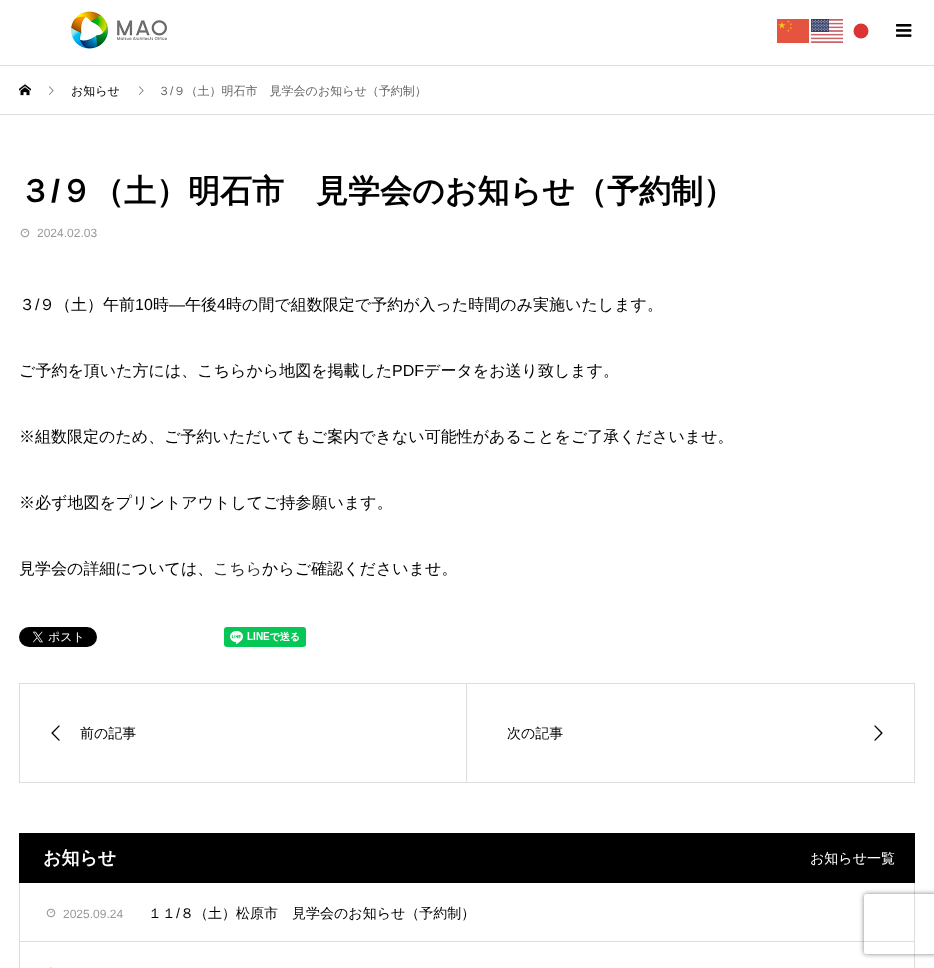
<!DOCTYPE html>
<meta charset="utf-8">
<style>body { margin: 0 } canvas { display: block }</style>
<canvas id="canvas" width="934" height="968"></canvas>
<script type="module">
  const canvas = document.getElementById("canvas");
  const ctx = canvas.getContext("2d");
  ctx.miterLimit = 4;
  ctx.fontKerning = "normal";
  async function loadImage(src) {
    const img = new Image();
    img.src = src;
    await img.decode();
    return img;
  }

  ctx.fillStyle = "#ffffff";
  ctx.fillRect(0, 0, 934, 968);
  ctx.drawImage(await loadImage("img1.png"), 71, 11, 96, 38);
  ctx.drawImage(await loadImage("img2.png"), 896, 24, 16, 13);
  ctx.drawImage(await loadImage("img3.png"), 777, 19, 32, 24);
  ctx.drawImage(await loadImage("img4.png"), 811, 19, 32, 24);
  ctx.fillStyle = "#dc3333";
  ctx.beginPath();
  ctx.arc(861, 31, 7.5, 0, Math.PI * 2);
  ctx.fill();
  ctx.fillStyle = "#dddddd";
  ctx.fillRect(0, 65, 934, 1);
  ctx.fillRect(0, 114, 934, 1);
  ctx.drawImage(await loadImage("img5.png"), 19, 84, 12, 12);
  ctx.drawImage(await loadImage("img6.png"), 49, 86, 5, 9);
  ctx.font = "500 12px WenQuanYi Zen Hei";
  ctx.fillStyle = "#000000";
  ctx.fillText("お知らせ", 71, 95);
  ctx.drawImage(await loadImage("img6.png"), 139, 86, 5, 9);
  ctx.fillStyle = "#666666";
  ctx.fillText("３ ９（土）明石市　見学会のお知らせ（予約制）", 158, 95);
  ctx.font = "12px Liberation Sans";
  ctx.fillText("/", 170, 95);
  ctx.font = "bold 32px WenQuanYi Zen Hei";
  ctx.fillStyle = "#000000";
  ctx.fillText("３", 19, 202);
  ctx.font = "bold 32px Liberation Sans";
  ctx.fillText("/", 51, 202);
  ctx.font = "bold 32px WenQuanYi Zen Hei";
  ctx.fillText("９（土）明石市　見学会のお知らせ（予約制）", 60, 202);
  ctx.drawImage(await loadImage("img7.png"), 20, 228, 10, 10);
  ctx.font = "12px Liberation Sans";
  ctx.fillStyle = "#999999";
  ctx.fillText("2024.02.03", 37, 237);
  ctx.font = "500 16px WenQuanYi Zen Hei";
  ctx.fillStyle = "#000000";
  ctx.fillText("３", 19, 310);
  ctx.font = "16px Liberation Sans";
  ctx.fillText("/", 35, 310);
  ctx.font = "500 16px WenQuanYi Zen Hei";
  ctx.fillText("９（土）午前", 39, 310);
  ctx.font = "16px Liberation Sans";
  ctx.fillText("10", 135, 310);
  ctx.font = "500 16px WenQuanYi Zen Hei";
  ctx.fillText("時", 153, 310);
  ctx.font = "16px Liberation Sans";
  ctx.fillText("―", 169, 310);
  ctx.font = "500 16px WenQuanYi Zen Hei";
  ctx.fillText("午後", 185, 310);
  ctx.font = "16px Liberation Sans";
  ctx.fillText("4", 217, 310);
  ctx.font = "500 16px WenQuanYi Zen Hei";
  ctx.fillText("時の間で組数限定で予約が入った時間のみ実施いたします。", 226, 310);
  ctx.fillText("ご予約を頂いた方には、こちらから地図を掲載した", 19, 376);
  ctx.font = "16px Liberation Sans";
  ctx.fillText("PDF", 392, 376);
  ctx.font = "500 16px WenQuanYi Zen Hei";
  ctx.fillText("データをお送り致します。", 424, 376);
  ctx.fillText("※組数限定のため、ご予約いただいてもご案内できない可能性があることをご了承くださいませ。", 19, 442);
  ctx.fillText("※必ず地図をプリントアウトしてご持参願います。", 19, 508);
  ctx.fillText("見学会の詳細については、", 19, 574);
  ctx.fillStyle = "#333333";
  ctx.fillText("こちら", 213, 574);
  ctx.fillStyle = "#000000";
  ctx.fillText("からご確認くださいませ。", 262, 574);
  ctx.drawImage(await loadImage("img8.png"), 19, 627, 78, 20);
  ctx.drawImage(await loadImage("img9.png"), 224, 627, 82, 20);
  ctx.strokeStyle = "#dddddd";
  ctx.strokeRect(19.5, 683.5, 447, 99);
  ctx.drawImage(await loadImage("img10.png"), 51, 725, 9, 16);
  ctx.font = "500 14px WenQuanYi Zen Hei";
  ctx.fillText("前の記事", 80, 738);
  ctx.fillStyle = "#dddddd";
  ctx.fillRect(467, 683, 448, 1);
  ctx.fillRect(914, 683, 1, 100);
  ctx.fillRect(467, 782, 448, 1);
  ctx.fillStyle = "#000000";
  ctx.fillText("次の記事", 507, 738);
  ctx.drawImage(await loadImage("img11.png"), 874, 725, 9, 16);
  ctx.strokeRect(19.5, 882.5, 895, 59);
  ctx.fillRect(19, 833, 896, 50);
  ctx.font = "bold 18px WenQuanYi Zen Hei";
  ctx.fillStyle = "#ffffff";
  ctx.fillText("お知らせ", 43, 864);
  ctx.font = "500 14px WenQuanYi Zen Hei";
  ctx.fillText("お知らせ一覧", 810, 863);
  ctx.drawImage(await loadImage("img7.png"), 46, 908, 10, 10);
  ctx.font = "12px Liberation Sans";
  ctx.fillStyle = "#999999";
  ctx.fillText("2025.09.24", 63, 918);
  ctx.font = "500 14px WenQuanYi Zen Hei";
  ctx.fillStyle = "#000000";
  ctx.fillText("１１", 148, 918);
  ctx.font = "14px Liberation Sans";
  ctx.fillText("/", 176, 918);
  ctx.font = "500 14px WenQuanYi Zen Hei";
  ctx.fillText("８（土）松原市　見学会のお知らせ（予約制）", 180, 918);
  ctx.strokeRect(19.5, 941.5, 895, 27);
  ctx.drawImage(await loadImage("img12.png"), 49, 967, 4, 1);
  ctx.save();
  ctx.beginPath();
  ctx.moveTo(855, 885);
  ctx.lineTo(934, 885);
  ctx.lineTo(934, 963);
  ctx.lineTo(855, 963);
  ctx.closePath();
  ctx.moveTo(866, 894);
  ctx.lineTo(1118, 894);
  ctx.bezierCurveTo(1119, 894, 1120, 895, 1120, 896);
  ctx.lineTo(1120, 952);
  ctx.bezierCurveTo(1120, 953, 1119, 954, 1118, 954);
  ctx.lineTo(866, 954);
  ctx.bezierCurveTo(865, 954, 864, 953, 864, 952);
  ctx.lineTo(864, 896);
  ctx.bezierCurveTo(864, 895, 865, 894, 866, 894);
  ctx.closePath();
  ctx.clip("evenodd");
  ctx.fillStyle = "#808080";
  ctx.filter = "blur(2.5px)";
  ctx.beginPath();
  ctx.roundRect(864, 894, 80, 60, 2);
  ctx.fill();
  ctx.filter = "none";
  ctx.restore();
</script>
